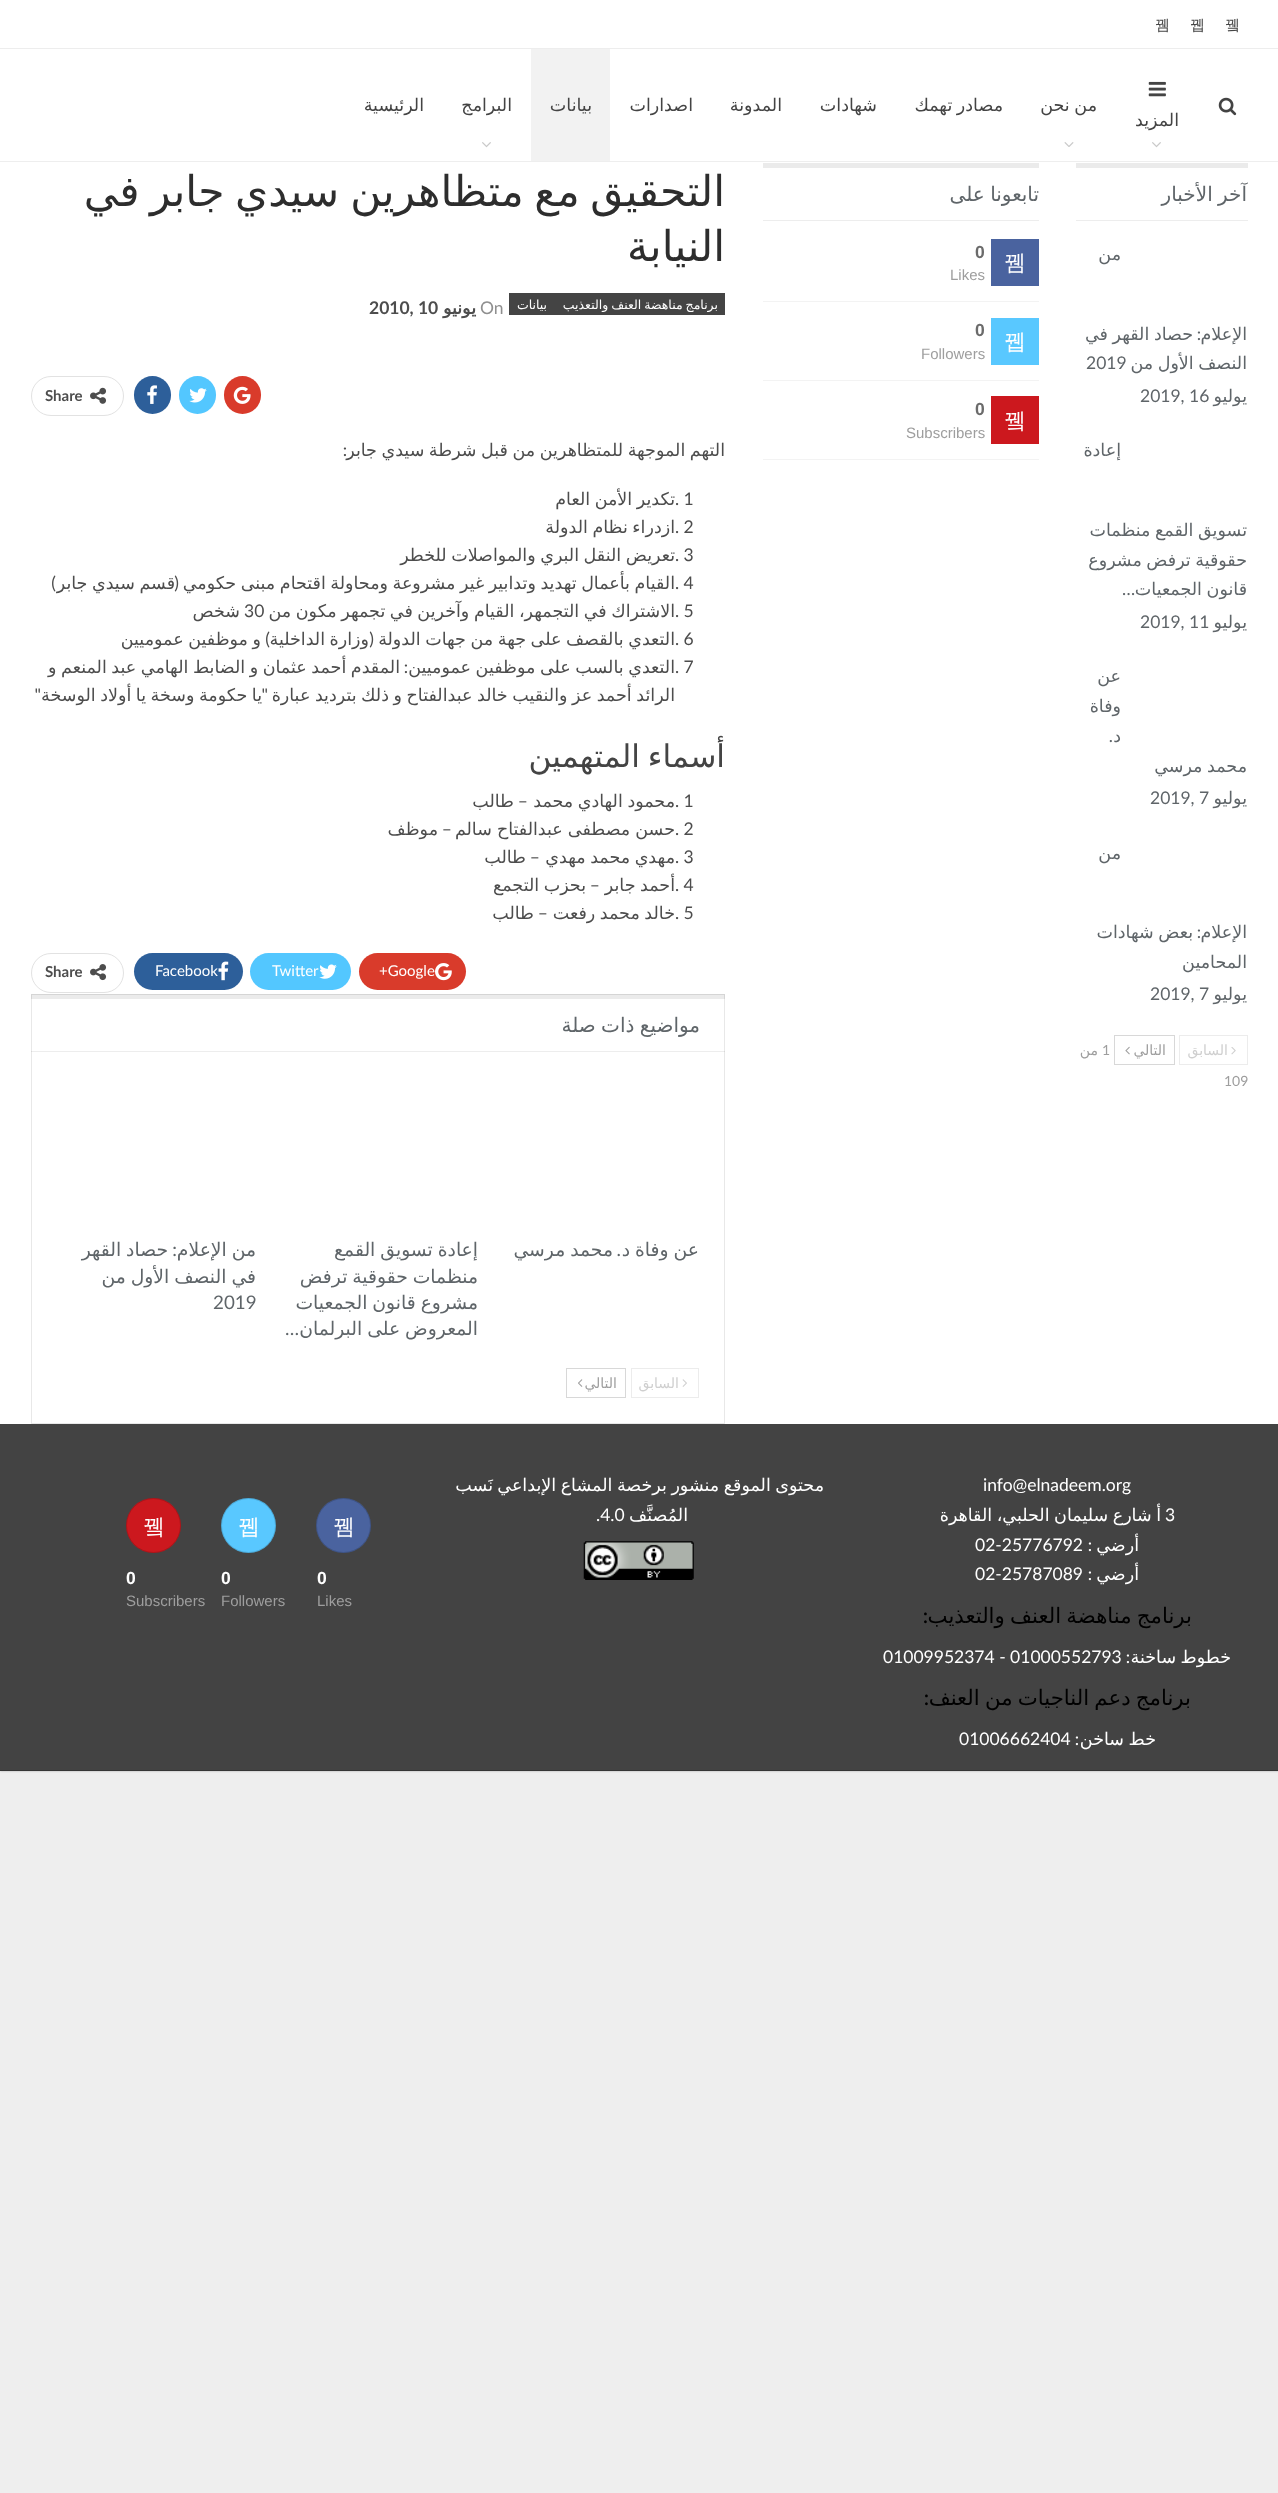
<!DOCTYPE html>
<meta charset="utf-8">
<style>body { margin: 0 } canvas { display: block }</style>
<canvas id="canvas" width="1278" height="2493"></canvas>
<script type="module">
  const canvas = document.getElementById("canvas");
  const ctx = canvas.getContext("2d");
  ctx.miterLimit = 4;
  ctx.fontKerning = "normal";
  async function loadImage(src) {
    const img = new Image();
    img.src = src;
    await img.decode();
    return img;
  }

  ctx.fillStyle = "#eeeeee";
  ctx.fillRect(0, 0, 1278, 2493);
  ctx.fillStyle = "rgba(0, 0, 0, 0.27)";
  ctx.filter = "blur(1px)";
  ctx.beginPath();
  ctx.rect(0, 0, 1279, 1771);
  ctx.fill();
  ctx.filter = "none";
  ctx.fillStyle = "#ffffff";
  ctx.fillRect(0, 0, 1278, 1424);
  ctx.fillStyle = "#eeeeee";
  ctx.fillRect(0, 161, 1278, 1);
  ctx.fillStyle = "#ededed";
  ctx.fillRect(0, 48, 1278, 1);
  ctx.font = "500 15px WenQuanYi Zen Hei";
  ctx.fillStyle = "#444444";
  ctx.fillText("뀈", 1225, 30);
  ctx.fillText("뀁", 1190, 30);
  ctx.fillText("뀀", 1155, 30);
  ctx.drawImage(await loadImage("img1.png"), 1218, 97, 19, 19);
  ctx.wordSpacing = "-1px";
  ctx.direction = "rtl";
  ctx.font = "17.5px DejaVu Sans";
  ctx.fillText("من نحن", 1097, 111);
  ctx.drawImage(await loadImage("img2.png"), 1064, 142, 10, 5);
  ctx.fillText("مصادر تهمك", 1003, 111);
  ctx.wordSpacing = "0px";
  ctx.fillText("شهادات", 877, 111);
  ctx.fillText("المدونة", 782, 111);
  ctx.fillText("اصدارات", 693, 111);
  ctx.fillStyle = "#f2f2f2";
  ctx.fillRect(531, 49, 79, 112);
  ctx.fillStyle = "#444444";
  ctx.fillText("بيانات", 592, 111);
  ctx.fillText("البرامج", 512, 111);
  ctx.drawImage(await loadImage("img3.png"), 482, 142, 9, 6);
  ctx.fillText("الرئيسية", 424, 111);
  ctx.drawImage(await loadImage("img4.png"), 1148, 81, 18, 16);
  ctx.fillText("المزيد", 1179, 126);
  ctx.drawImage(await loadImage("img3.png"), 1152, 142, 9, 6);
  ctx.fillStyle = "#ebebeb";
  ctx.fillRect(1076, 163, 172, 5);
  ctx.wordSpacing = "-1px";
  ctx.font = "20px DejaVu Sans";
  ctx.fillStyle = "#5f6569";
  ctx.fillText("آخر الأخبار", 1247, 201);
  ctx.fillStyle = "#ededed";
  ctx.fillRect(1076, 220, 172, 1);
  ctx.wordSpacing = "0px";
  ctx.font = "17.5px DejaVu Sans";
  ctx.fillStyle = "#5f6569";
  ctx.fillText("من", 1121, 260);
  ctx.fillText("الإعلام", 1247, 340);
  ctx.font = "17.5px Lato";
  ctx.fillText(":", 1201, 340);
  ctx.wordSpacing = "-1px";
  ctx.font = "17.5px DejaVu Sans";
  ctx.fillText("حصاد القهر في", 1193, 340);
  ctx.fillText("النصف الأول من", 1247, 369);
  ctx.wordSpacing = "0px";
  ctx.direction = "ltr";
  ctx.font = "17.5px Lato";
  ctx.fillText("2019", 1086, 369);
  ctx.direction = "rtl";
  ctx.font = "17.5px DejaVu Sans";
  ctx.fillText("يوليو", 1247, 402);
  ctx.direction = "ltr";
  ctx.font = "17.5px Lato";
  ctx.fillText("2019, 16", 1140, 402);
  ctx.direction = "rtl";
  ctx.font = "17.5px DejaVu Sans";
  ctx.fillText("إعادة", 1121, 456);
  ctx.wordSpacing = "-1px";
  ctx.fillText("تسويق القمع منظمات", 1247, 536);
  ctx.fillText("حقوقية ترفض مشروع", 1247, 566);
  ctx.fillText("قانون الجمعيات", 1247, 595);
  ctx.wordSpacing = "0px";
  ctx.font = "17.5px Lato";
  ctx.fillText("…", 1135, 595);
  ctx.font = "17.5px DejaVu Sans";
  ctx.fillText("يوليو", 1247, 628);
  ctx.direction = "ltr";
  ctx.font = "17.5px Lato";
  ctx.fillText("2019, 11", 1140, 628);
  ctx.direction = "rtl";
  ctx.font = "17.5px DejaVu Sans";
  ctx.fillText("عن", 1121, 682);
  ctx.fillText("وفاة", 1121, 712);
  ctx.fillText("د", 1121, 742);
  ctx.font = "17.5px Lato";
  ctx.fillText(".", 1113, 742);
  ctx.wordSpacing = "-1px";
  ctx.font = "17.5px DejaVu Sans";
  ctx.fillText("محمد مرسي", 1247, 772);
  ctx.wordSpacing = "0px";
  ctx.fillText("يوليو", 1247, 804);
  ctx.direction = "ltr";
  ctx.font = "17.5px Lato";
  ctx.fillText("2019, 7", 1150, 804);
  ctx.direction = "rtl";
  ctx.font = "17.5px DejaVu Sans";
  ctx.fillText("من", 1121, 859);
  ctx.fillText("الإعلام", 1247, 938);
  ctx.font = "17.5px Lato";
  ctx.fillText(":", 1201, 938);
  ctx.wordSpacing = "-1px";
  ctx.font = "17.5px DejaVu Sans";
  ctx.fillText("بعض شهادات", 1193, 938);
  ctx.wordSpacing = "0px";
  ctx.fillText("المحامين", 1247, 968);
  ctx.fillText("يوليو", 1247, 1000);
  ctx.direction = "ltr";
  ctx.font = "17.5px Lato";
  ctx.fillText("2019, 7", 1150, 1000);
  ctx.strokeStyle = "#ececec";
  ctx.strokeRect(1179.5, 1035.5, 68, 29);
  ctx.drawImage(await loadImage("img5.png"), 1231, 1047, 5, 8);
  ctx.direction = "rtl";
  ctx.font = "14px DejaVu Sans";
  ctx.fillStyle = "#cfcfcf";
  ctx.fillText("السابق", 1228, 1055);
  ctx.strokeStyle = "#d8d8d8";
  ctx.strokeRect(1114.5, 1035.5, 60, 29);
  ctx.fillStyle = "#9e9e9e";
  ctx.fillText("التالي", 1166, 1055);
  ctx.drawImage(await loadImage("img6.png"), 1125, 1046, 5, 9);
  ctx.direction = "ltr";
  ctx.font = "14px Lato";
  ctx.fillText("1", 1102, 1055);
  ctx.direction = "rtl";
  ctx.font = "14px DejaVu Sans";
  ctx.fillText("من", 1098, 1055);
  ctx.direction = "ltr";
  ctx.font = "14px Lato";
  ctx.fillText("109", 1224, 1086);
  ctx.fillStyle = "#ebebeb";
  ctx.fillRect(763, 163, 276, 5);
  ctx.wordSpacing = "-1px";
  ctx.direction = "rtl";
  ctx.font = "20px DejaVu Sans";
  ctx.fillStyle = "#5f6569";
  ctx.fillText("تابعونا على", 1039, 201);
  ctx.fillStyle = "#ededed";
  ctx.fillRect(763, 220, 276, 1);
  ctx.fillStyle = "#f3f3f3";
  ctx.fillRect(763, 301, 276, 1);
  ctx.fillStyle = "#4a639f";
  ctx.fillRect(991, 239, 48, 47);
  ctx.wordSpacing = "0px";
  ctx.direction = "ltr";
  ctx.font = "500 22px WenQuanYi Zen Hei";
  ctx.fillStyle = "#ffffff";
  ctx.fillText("뀀", 1004, 270);
  ctx.font = "bold 17.5px Liberation Sans";
  ctx.fillStyle = "#6b6b6b";
  ctx.fillText("0", 975, 258);
  ctx.font = "15px Liberation Sans";
  ctx.fillStyle = "#9e9e9e";
  ctx.fillText("Likes", 950, 280);
  ctx.fillStyle = "#f3f3f3";
  ctx.fillRect(763, 380, 276, 1);
  ctx.font = "bold 17.5px Liberation Sans";
  ctx.fillStyle = "#6b6b6b";
  ctx.fillText("0", 975, 336);
  ctx.fillStyle = "#59c8ff";
  ctx.fillRect(991, 318, 48, 47);
  ctx.font = "500 22px WenQuanYi Zen Hei";
  ctx.fillStyle = "#ffffff";
  ctx.fillText("뀁", 1004, 349);
  ctx.font = "15px Liberation Sans";
  ctx.fillStyle = "#9e9e9e";
  ctx.fillText("Followers", 921, 359);
  ctx.fillStyle = "#f3f3f3";
  ctx.fillRect(763, 459, 276, 1);
  ctx.font = "bold 17.5px Liberation Sans";
  ctx.fillStyle = "#6b6b6b";
  ctx.fillText("0", 975, 415);
  ctx.fillStyle = "#cc181e";
  ctx.fillRect(991, 396, 48, 48);
  ctx.font = "500 22px WenQuanYi Zen Hei";
  ctx.fillStyle = "#ffffff";
  ctx.fillText("뀈", 1004, 428);
  ctx.font = "15px Liberation Sans";
  ctx.fillStyle = "#9e9e9e";
  ctx.fillText("Subscribers", 906, 438);
  ctx.wordSpacing = "-3px";
  ctx.direction = "rtl";
  ctx.font = "42.5px DejaVu Sans";
  ctx.fillStyle = "#2d2d2d";
  ctx.fillText("التحقيق مع متظاهرين", 725, 206);
  ctx.fillText("سيدي جابر في", 339, 206);
  ctx.wordSpacing = "0px";
  ctx.fillText("النيابة", 725, 261);
  ctx.fillStyle = "#444444";
  ctx.fillRect(509, 293, 216, 22);
  ctx.wordSpacing = "-1px";
  ctx.font = "12.5px DejaVu Sans";
  ctx.fillStyle = "#ffffff";
  ctx.fillText("برنامج مناهضة العنف والتعذيب", 718, 309);
  ctx.wordSpacing = "0px";
  ctx.fillText("بيانات", 547, 309);
  ctx.direction = "ltr";
  ctx.font = "17.5px Lato";
  ctx.fillStyle = "#8f8f8f";
  ctx.fillText("On", 480, 314);
  ctx.direction = "rtl";
  ctx.font = "bold 17.5px DejaVu Sans";
  ctx.fillStyle = "#4d4d4d";
  ctx.fillText("يونيو", 476, 314);
  ctx.direction = "ltr";
  ctx.font = "bold 17.5px Lato";
  ctx.fillText("2010, 10", 369, 314);
  ctx.fillStyle = "#d93b2b";
  ctx.beginPath();
  ctx.roundRect(224, 376, 37, 38, 18.5);
  ctx.fill();
  ctx.drawImage(await loadImage("img7.png"), 233, 386, 18, 18);
  ctx.fillStyle = "#53c7ff";
  ctx.beginPath();
  ctx.roundRect(179, 376, 37, 38, 18.5);
  ctx.fill();
  ctx.drawImage(await loadImage("img8.png"), 189, 388, 18, 15);
  ctx.fillStyle = "#2d5f9a";
  ctx.beginPath();
  ctx.roundRect(134, 376, 37, 38, 18.5);
  ctx.fill();
  ctx.drawImage(await loadImage("img9.png"), 147, 385, 10, 19);
  ctx.beginPath();
  ctx.roundRect(31.5, 376.5, 92, 39, 19.5);
  ctx.strokeStyle = "#e2e2e2";
  ctx.stroke();
  ctx.drawImage(await loadImage("img10.png"), 90, 387, 17, 17);
  ctx.font = "bold 15px Lato";
  ctx.fillStyle = "#4d4d4d";
  ctx.fillText("Share", 45, 401);
  ctx.wordSpacing = "-1px";
  ctx.direction = "rtl";
  ctx.font = "17.5px DejaVu Sans";
  ctx.fillText("التهم الموجهة للمتظاهرين من قبل شرطة سيدي جابر", 725, 456);
  ctx.wordSpacing = "0px";
  ctx.font = "17.5px Lato";
  ctx.fillText(":", 347, 456);
  ctx.direction = "ltr";
  ctx.fillText(". 1", 675, 505);
  ctx.wordSpacing = "-1px";
  ctx.direction = "rtl";
  ctx.font = "17.5px DejaVu Sans";
  ctx.fillText("تكدير الأمن العام", 675, 505);
  ctx.wordSpacing = "0px";
  ctx.direction = "ltr";
  ctx.font = "17.5px Lato";
  ctx.fillText(". 2", 675, 533);
  ctx.wordSpacing = "-1px";
  ctx.direction = "rtl";
  ctx.font = "17.5px DejaVu Sans";
  ctx.fillText("ازدراء نظام الدولة", 675, 533);
  ctx.wordSpacing = "0px";
  ctx.direction = "ltr";
  ctx.font = "17.5px Lato";
  ctx.fillText(". 3", 675, 561);
  ctx.wordSpacing = "-1px";
  ctx.direction = "rtl";
  ctx.font = "17.5px DejaVu Sans";
  ctx.fillText("تعريض النقل البري والمواصلات للخطر", 675, 561);
  ctx.wordSpacing = "0px";
  ctx.direction = "ltr";
  ctx.font = "17.5px Lato";
  ctx.fillText(". 4", 675, 589);
  ctx.wordSpacing = "-1px";
  ctx.direction = "rtl";
  ctx.font = "17.5px DejaVu Sans";
  ctx.fillText("القيام بأعمال تهديد وتدابير غير مشروعة ومحاولة اقتحام مبنى حكومي", 675, 589);
  ctx.wordSpacing = "0px";
  ctx.font = "17.5px Lato";
  ctx.fillText("(", 179, 589);
  ctx.fillText(")", 56, 589);
  ctx.wordSpacing = "-1px";
  ctx.font = "17.5px DejaVu Sans";
  ctx.fillText("قسم سيدي جابر", 175, 589);
  ctx.wordSpacing = "0px";
  ctx.direction = "ltr";
  ctx.font = "17.5px Lato";
  ctx.fillText(". 5", 675, 617);
  ctx.wordSpacing = "-1px";
  ctx.direction = "rtl";
  ctx.font = "17.5px DejaVu Sans";
  ctx.fillText("الاشتراك في التجمهر، القيام وآخرين في تجمهر مكون من", 675, 617);
  ctx.wordSpacing = "0px";
  ctx.direction = "ltr";
  ctx.font = "17.5px Lato";
  ctx.fillText("30", 244, 617);
  ctx.direction = "rtl";
  ctx.font = "17.5px DejaVu Sans";
  ctx.fillText("شخص", 240, 617);
  ctx.direction = "ltr";
  ctx.font = "17.5px Lato";
  ctx.fillText(". 6", 675, 645);
  ctx.wordSpacing = "-1px";
  ctx.direction = "rtl";
  ctx.font = "17.5px DejaVu Sans";
  ctx.fillText("التعدي بالقصف على جهة من جهات الدولة", 675, 645);
  ctx.wordSpacing = "0px";
  ctx.font = "17.5px Lato";
  ctx.fillText("(", 374, 645);
  ctx.wordSpacing = "-1px";
  ctx.font = "17.5px DejaVu Sans";
  ctx.fillText("وزارة الداخلية", 369, 645);
  ctx.wordSpacing = "0px";
  ctx.font = "17.5px Lato";
  ctx.fillText(")", 270, 645);
  ctx.wordSpacing = "-1px";
  ctx.font = "17.5px DejaVu Sans";
  ctx.fillText("و موظفين عموميين", 261, 645);
  ctx.wordSpacing = "0px";
  ctx.direction = "ltr";
  ctx.font = "17.5px Lato";
  ctx.fillText(". 7", 675, 673);
  ctx.wordSpacing = "-1px";
  ctx.direction = "rtl";
  ctx.font = "17.5px DejaVu Sans";
  ctx.fillText("التعدي بالسب على موظفين عموميين", 675, 673);
  ctx.wordSpacing = "0px";
  ctx.font = "17.5px Lato";
  ctx.fillText(":", 408, 673);
  ctx.wordSpacing = "-1px";
  ctx.font = "17.5px DejaVu Sans";
  ctx.fillText("المقدم أحمد عثمان و الضابط الهامي عبد المنعم و", 400, 673);
  ctx.fillText("الرائد أحمد عز والنقيب خالد عبدالفتاح و ذلك بترديد عبارة", 675, 701);
  ctx.wordSpacing = "0px";
  ctx.font = "17.5px Lato";
  ctx.fillText("\"", 268, 701);
  ctx.wordSpacing = "-1px";
  ctx.font = "17.5px DejaVu Sans";
  ctx.fillText("يا حكومة وسخة يا أولاد الوسخة", 262, 701);
  ctx.wordSpacing = "0px";
  ctx.font = "17.5px Lato";
  ctx.fillText("\"", 41, 701);
  ctx.wordSpacing = "-2px";
  ctx.font = "31.25px DejaVu Sans";
  ctx.fillStyle = "#444444";
  ctx.fillText("أسماء المتهمين", 725, 767);
  ctx.wordSpacing = "0px";
  ctx.direction = "ltr";
  ctx.font = "17.5px Lato";
  ctx.fillStyle = "#4d4d4d";
  ctx.fillText(". 1", 675, 807);
  ctx.wordSpacing = "-1px";
  ctx.direction = "rtl";
  ctx.font = "17.5px DejaVu Sans";
  ctx.fillText("محمود الهادي محمد", 675, 807);
  ctx.wordSpacing = "0px";
  ctx.font = "17.5px Lato";
  ctx.fillText("–", 528, 807);
  ctx.font = "17.5px DejaVu Sans";
  ctx.fillText("طالب", 514, 807);
  ctx.direction = "ltr";
  ctx.font = "17.5px Lato";
  ctx.fillText(". 2", 675, 835);
  ctx.wordSpacing = "-0.5px";
  ctx.direction = "rtl";
  ctx.font = "17.5px DejaVu Sans";
  ctx.fillText("حسن مصطفى عبدالفتاح سالم", 675, 835);
  ctx.wordSpacing = "0px";
  ctx.font = "17.5px Lato";
  ctx.fillText("–", 452, 835);
  ctx.font = "17.5px DejaVu Sans";
  ctx.fillText("موظف", 438, 835);
  ctx.direction = "ltr";
  ctx.font = "17.5px Lato";
  ctx.fillText(". 3", 675, 863);
  ctx.wordSpacing = "-1px";
  ctx.direction = "rtl";
  ctx.font = "17.5px DejaVu Sans";
  ctx.fillText("مهدي محمد مهدي", 675, 863);
  ctx.wordSpacing = "0px";
  ctx.font = "17.5px Lato";
  ctx.fillText("–", 540, 863);
  ctx.font = "17.5px DejaVu Sans";
  ctx.fillText("طالب", 526, 863);
  ctx.direction = "ltr";
  ctx.font = "17.5px Lato";
  ctx.fillText(". 4", 675, 891);
  ctx.wordSpacing = "-1px";
  ctx.direction = "rtl";
  ctx.font = "17.5px DejaVu Sans";
  ctx.fillText("أحمد جابر", 675, 891);
  ctx.wordSpacing = "0px";
  ctx.font = "17.5px Lato";
  ctx.fillText("–", 600, 891);
  ctx.wordSpacing = "-1px";
  ctx.font = "17.5px DejaVu Sans";
  ctx.fillText("بحزب التجمع", 586, 891);
  ctx.wordSpacing = "0px";
  ctx.direction = "ltr";
  ctx.font = "17.5px Lato";
  ctx.fillText(". 5", 675, 919);
  ctx.wordSpacing = "-1px";
  ctx.direction = "rtl";
  ctx.font = "17.5px DejaVu Sans";
  ctx.fillText("خالد محمد رفعت", 675, 919);
  ctx.wordSpacing = "0px";
  ctx.font = "17.5px Lato";
  ctx.fillText("–", 548, 919);
  ctx.font = "17.5px DejaVu Sans";
  ctx.fillText("طالب", 534, 919);
  ctx.fillStyle = "#d93b2b";
  ctx.beginPath();
  ctx.roundRect(359, 953, 107, 37, 18.5);
  ctx.fill();
  ctx.drawImage(await loadImage("img11.png"), 435, 963, 17, 18);
  ctx.direction = "ltr";
  ctx.font = "15px Lato";
  ctx.fillStyle = "#ffffff";
  ctx.fillText("+Google", 379, 976);
  ctx.fillStyle = "#53c7ff";
  ctx.beginPath();
  ctx.roundRect(250, 953, 101, 37, 18.5);
  ctx.fill();
  ctx.drawImage(await loadImage("img12.png"), 319, 964, 18, 15);
  ctx.fillStyle = "#ffffff";
  ctx.fillText("Twitter", 272, 976);
  ctx.fillStyle = "#2d5f9a";
  ctx.beginPath();
  ctx.roundRect(134, 953, 109, 37, 18.5);
  ctx.fill();
  ctx.drawImage(await loadImage("img13.png"), 218, 961, 11, 20);
  ctx.fillStyle = "#ffffff";
  ctx.fillText("Facebook", 155, 976);
  ctx.beginPath();
  ctx.roundRect(31.5, 953.5, 92, 39, 19.5);
  ctx.stroke();
  ctx.drawImage(await loadImage("img14.png"), 90, 964, 17, 17);
  ctx.font = "bold 15px Lato";
  ctx.fillStyle = "#4d4d4d";
  ctx.fillText("Share", 45, 977);
  ctx.strokeStyle = "#e8e8e8";
  ctx.strokeRect(31.5, 994.5, 693, 429);
  ctx.fillStyle = "rgba(0, 0, 0, 0.08)";
  ctx.fillRect(31, 994, 694, 5);
  ctx.wordSpacing = "-1px";
  ctx.direction = "rtl";
  ctx.font = "20px DejaVu Sans";
  ctx.fillStyle = "#5f6569";
  ctx.fillText("مواضيع ذات صلة", 700, 1032);
  ctx.fillStyle = "rgba(0, 0, 0, 0.07)";
  ctx.fillRect(31, 1051, 694, 1);
  ctx.font = "18.75px DejaVu Sans";
  ctx.fillStyle = "#5f6569";
  ctx.fillText("عن وفاة د", 699, 1256);
  ctx.wordSpacing = "0px";
  ctx.font = "18.75px Lato";
  ctx.fillText(".", 621, 1256);
  ctx.wordSpacing = "-1px";
  ctx.font = "18.75px DejaVu Sans";
  ctx.fillText("محمد مرسي", 613, 1256);
  ctx.fillText("إعادة تسويق القمع", 478, 1256);
  ctx.fillText("منظمات حقوقية ترفض", 478, 1283);
  ctx.fillText("مشروع قانون الجمعيات", 478, 1309);
  ctx.fillText("المعروض على البرلمان", 478, 1335);
  ctx.wordSpacing = "0px";
  ctx.font = "18.75px Lato";
  ctx.fillText("…", 299, 1335);
  ctx.wordSpacing = "-1px";
  ctx.font = "18.75px DejaVu Sans";
  ctx.fillText("من الإعلام", 256, 1256);
  ctx.wordSpacing = "0px";
  ctx.font = "18.75px Lato";
  ctx.fillText(":", 177, 1256);
  ctx.wordSpacing = "-1px";
  ctx.font = "18.75px DejaVu Sans";
  ctx.fillText("حصاد القهر", 168, 1256);
  ctx.fillText("في النصف الأول من", 256, 1283);
  ctx.wordSpacing = "0px";
  ctx.direction = "ltr";
  ctx.font = "18.75px Lato";
  ctx.fillText("2019", 213, 1309);
  ctx.strokeStyle = "#ececec";
  ctx.strokeRect(631.5, 1368.5, 67, 29);
  ctx.drawImage(await loadImage("img15.png"), 682, 1379, 5, 8);
  ctx.direction = "rtl";
  ctx.font = "14px DejaVu Sans";
  ctx.fillStyle = "#cfcfcf";
  ctx.fillText("السابق", 679, 1388);
  ctx.strokeStyle = "#d8d8d8";
  ctx.strokeRect(566.5, 1368.5, 59, 29);
  ctx.fillStyle = "#9e9e9e";
  ctx.fillText("التالي", 617, 1388);
  ctx.drawImage(await loadImage("img16.png"), 578, 1379, 5, 8);
  ctx.fillStyle = "#434343";
  ctx.fillRect(0, 1424, 1278, 346);
  ctx.direction = "ltr";
  ctx.font = "17.5px Lato";
  ctx.fillStyle = "#ffffff";
  ctx.fillText("info@elnadeem.org", 983, 1491);
  ctx.fillText("3", 1165, 1521);
  ctx.wordSpacing = "-1px";
  ctx.direction = "rtl";
  ctx.font = "17.5px DejaVu Sans";
  ctx.fillText("أ شارع سليمان الحلبي، القاهرة", 1161, 1521);
  ctx.wordSpacing = "0px";
  ctx.fillText("أرضي", 1139, 1551);
  ctx.font = "17.5px Lato";
  ctx.fillText(":", 1092, 1551);
  ctx.direction = "ltr";
  ctx.fillText("02-25776792", 975, 1551);
  ctx.direction = "rtl";
  ctx.font = "17.5px DejaVu Sans";
  ctx.fillText("أرضي", 1139, 1580);
  ctx.font = "17.5px Lato";
  ctx.fillText(":", 1092, 1580);
  ctx.direction = "ltr";
  ctx.fillText("02-25787089", 975, 1580);
  ctx.wordSpacing = "-1.5px";
  ctx.direction = "rtl";
  ctx.font = "21.25px DejaVu Sans";
  ctx.fillStyle = "#000000";
  ctx.fillText("برنامج مناهضة العنف والتعذيب", 1192, 1623);
  ctx.wordSpacing = "0px";
  ctx.font = "500 21.25px Lato";
  ctx.fillText(":", 928, 1623);
  ctx.wordSpacing = "-1px";
  ctx.font = "17.5px DejaVu Sans";
  ctx.fillStyle = "#ffffff";
  ctx.fillText("خطوط ساخنة", 1231, 1663);
  ctx.wordSpacing = "0px";
  ctx.font = "17.5px Lato";
  ctx.fillText(":", 1130, 1663);
  ctx.direction = "ltr";
  ctx.fillText("01009952374 - 01000552793", 883, 1663);
  ctx.wordSpacing = "-1.5px";
  ctx.direction = "rtl";
  ctx.font = "21.25px DejaVu Sans";
  ctx.fillStyle = "#000000";
  ctx.fillText("برنامج دعم الناجيات من العنف", 1191, 1705);
  ctx.wordSpacing = "0px";
  ctx.font = "500 21.25px Lato";
  ctx.fillText(":", 929, 1705);
  ctx.wordSpacing = "-1px";
  ctx.font = "17.5px DejaVu Sans";
  ctx.fillStyle = "#ffffff";
  ctx.fillText("خط ساخن", 1156, 1745);
  ctx.wordSpacing = "0px";
  ctx.font = "17.5px Lato";
  ctx.fillText(":", 1079, 1745);
  ctx.direction = "ltr";
  ctx.fillText("01006662404", 959, 1745);
  ctx.wordSpacing = "-1px";
  ctx.direction = "rtl";
  ctx.font = "17.5px DejaVu Sans";
  ctx.fillText("محتوى الموقع منشور برخصة المشاع الإبداعي", 824, 1491);
  ctx.wordSpacing = "0px";
  ctx.fillText("نَسب", 493, 1491);
  ctx.fillText("المُصنَّف", 688, 1521);
  ctx.direction = "ltr";
  ctx.font = "17.5px Lato";
  ctx.fillText(".4.0", 596, 1521);
  ctx.drawImage(await loadImage("img17.png"), 583, 1541, 111, 39);
  ctx.fillStyle = "#4a639f";
  ctx.beginPath();
  ctx.arc(343.5, 1525.5, 27.5, 0, Math.PI * 2);
  ctx.fill();
  ctx.beginPath();
  ctx.arc(343.5, 1525.5, 27, 0, Math.PI * 2);
  ctx.strokeStyle = "rgba(0, 0, 0, 0.15)";
  ctx.stroke();
  ctx.font = "500 22px WenQuanYi Zen Hei";
  ctx.fillStyle = "#ffffff";
  ctx.fillText("뀀", 333, 1534);
  ctx.font = "bold 17.5px Liberation Sans";
  ctx.fillText("0", 317, 1584);
  ctx.font = "15px Liberation Sans";
  ctx.fillStyle = "#9e9e9e";
  ctx.fillText("Likes", 317, 1606);
  ctx.fillStyle = "#59c8ff";
  ctx.beginPath();
  ctx.arc(248.5, 1525.5, 27.5, 0, Math.PI * 2);
  ctx.fill();
  ctx.beginPath();
  ctx.arc(248.5, 1525.5, 27, 0, Math.PI * 2);
  ctx.stroke();
  ctx.font = "500 22px WenQuanYi Zen Hei";
  ctx.fillStyle = "#ffffff";
  ctx.fillText("뀁", 238, 1534);
  ctx.font = "bold 17.5px Liberation Sans";
  ctx.fillText("0", 221, 1584);
  ctx.font = "15px Liberation Sans";
  ctx.fillStyle = "#9e9e9e";
  ctx.fillText("Followers", 221, 1606);
  ctx.fillStyle = "#cc181e";
  ctx.beginPath();
  ctx.arc(153.5, 1525.5, 27.5, 0, Math.PI * 2);
  ctx.fill();
  ctx.beginPath();
  ctx.arc(153.5, 1525.5, 27, 0, Math.PI * 2);
  ctx.stroke();
  ctx.font = "500 22px WenQuanYi Zen Hei";
  ctx.fillStyle = "#ffffff";
  ctx.fillText("뀈", 143, 1534);
  ctx.font = "bold 17.5px Liberation Sans";
  ctx.fillText("0", 126, 1584);
  ctx.font = "15px Liberation Sans";
  ctx.fillStyle = "#9e9e9e";
  ctx.fillText("Subscribers", 126, 1606);
  ctx.fillStyle = "#353535";
  ctx.fillRect(0, 1770, 1278, 1);
</script>
